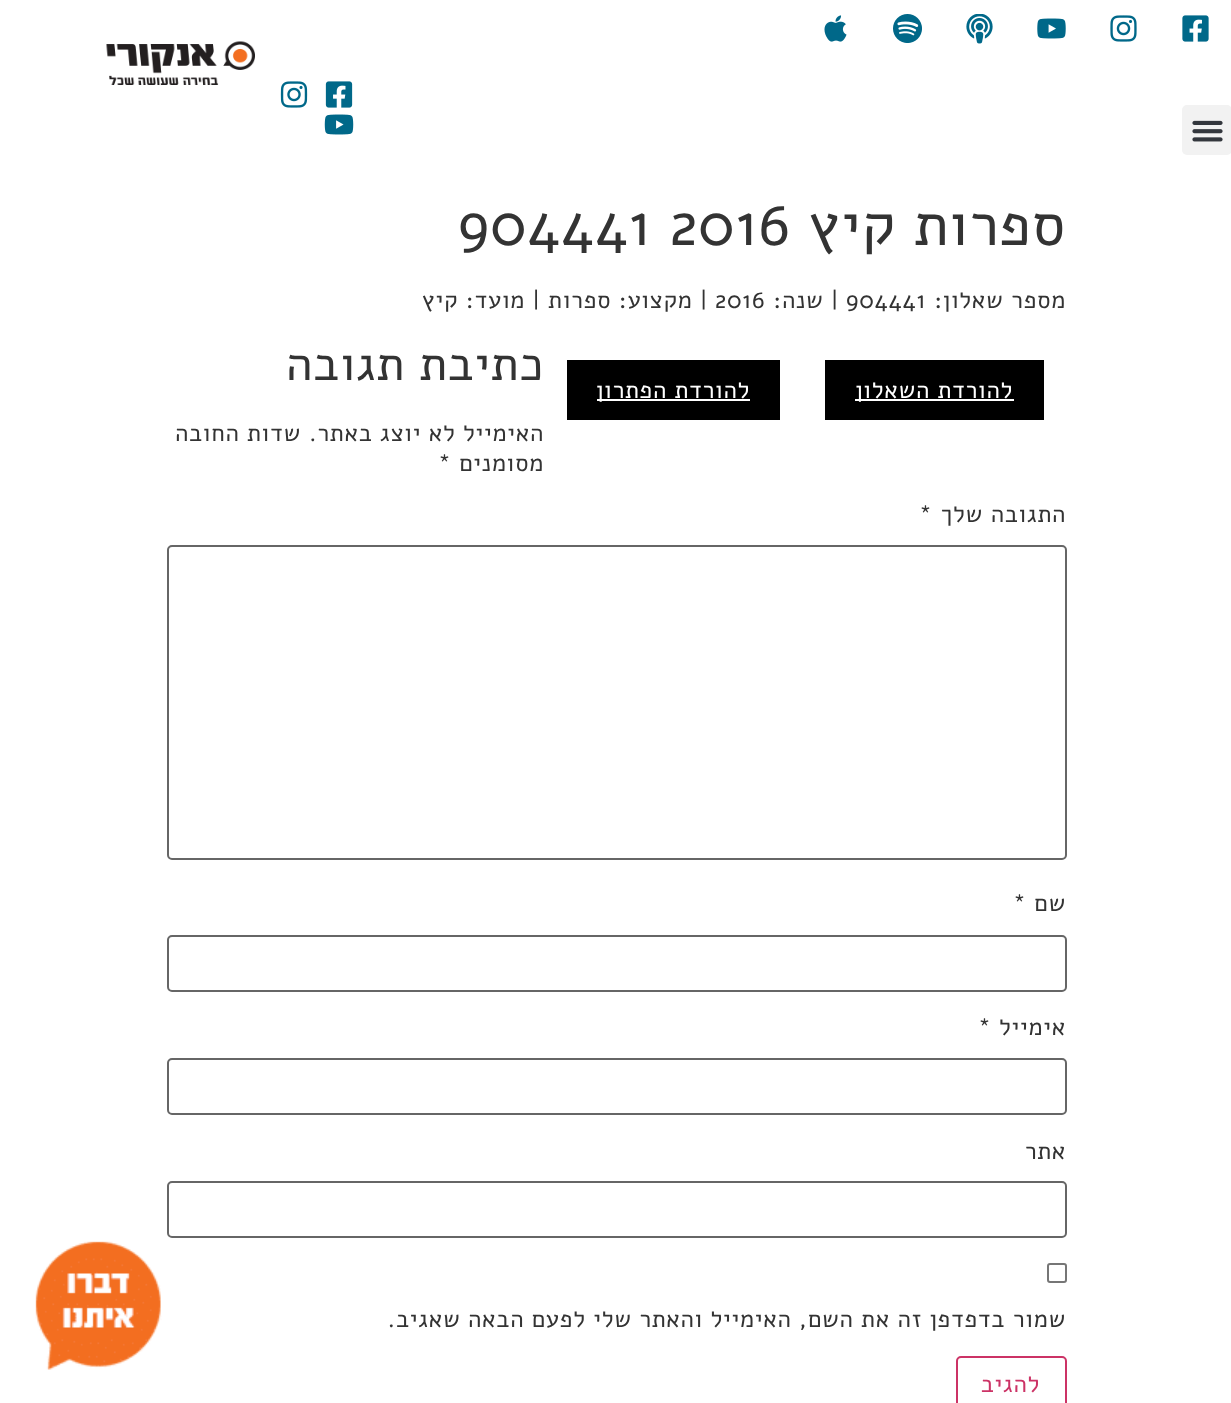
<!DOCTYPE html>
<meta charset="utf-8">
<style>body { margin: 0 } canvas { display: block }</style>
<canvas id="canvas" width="1231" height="1403"></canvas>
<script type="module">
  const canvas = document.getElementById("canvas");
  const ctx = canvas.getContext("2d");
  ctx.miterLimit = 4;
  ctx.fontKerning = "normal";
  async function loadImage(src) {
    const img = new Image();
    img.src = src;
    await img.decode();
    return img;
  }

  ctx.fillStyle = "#ffffff";
  ctx.fillRect(0, 0, 1231, 1403);
  ctx.drawImage(await loadImage("img1.png"), 1182, 15, 27, 27);
  ctx.drawImage(await loadImage("img2.png"), 1110, 15, 27, 27);
  ctx.drawImage(await loadImage("img3.png"), 1037, 18, 29, 21);
  ctx.drawImage(await loadImage("img4.png"), 966, 14, 27, 30);
  ctx.drawImage(await loadImage("img5.png"), 893, 14, 29, 29);
  ctx.drawImage(await loadImage("img6.png"), 824, 15, 23, 27);
  ctx.drawImage(await loadImage("img7.png"), 106, 41, 149, 44);
  ctx.fillStyle = "#f2f2f2";
  ctx.beginPath();
  ctx.roundRect(1182, 105, 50, 50, 5);
  ctx.fill();
  ctx.drawImage(await loadImage("img8.png"), 1192, 120, 31, 22);
  ctx.drawImage(await loadImage("img9.png"), 325, 81, 28, 27);
  ctx.drawImage(await loadImage("img10.png"), 280, 81, 28, 27);
  ctx.drawImage(await loadImage("img11.png"), 324, 114, 30, 21);
  ctx.letterSpacing = "0.75px";
  ctx.direction = "rtl";
  ctx.font = "60px Alef";
  ctx.fillStyle = "#333333";
  ctx.fillText("ספרות קיץ", 1066, 245);
  ctx.direction = "ltr";
  ctx.fillText("904441 2016", 458, 245);
  ctx.direction = "rtl";
  ctx.font = "24px Alef";
  ctx.fillText("מספר שאלון:", 1066, 308);
  ctx.direction = "ltr";
  ctx.fillText("904441", 846, 308);
  ctx.direction = "rtl";
  ctx.fillText("| שנה:", 839, 308);
  ctx.direction = "ltr";
  ctx.fillText("2016", 715, 308);
  ctx.direction = "rtl";
  ctx.fillText("| מקצוע: ספרות | מועד: קיץ", 708, 308);
  ctx.fillStyle = "#000000";
  ctx.fillRect(825, 360, 219, 60);
  ctx.fillStyle = "#ffffff";
  ctx.fillRect(855, 399, 159, 2);
  ctx.fillText("להורדת השאלון", 1013, 398);
  ctx.fillStyle = "#000000";
  ctx.fillRect(567, 360, 213, 60);
  ctx.fillStyle = "#ffffff";
  ctx.fillRect(597, 399, 153, 2);
  ctx.fillText("להורדת הפתרון", 750, 398);
  ctx.font = "48px Alef";
  ctx.fillStyle = "#333333";
  ctx.fillText("כתיבת תגובה", 544, 380);
  ctx.font = "24px Alef";
  ctx.fillText("האימייל לא יוצג באתר.", 544, 441);
  ctx.fillText("שדות החובה", 301, 441);
  ctx.fillText("מסומנים", 544, 471);
  ctx.direction = "ltr";
  ctx.fillText("*", 438, 471);
  ctx.direction = "rtl";
  ctx.fillText("התגובה שלך", 1066, 522);
  ctx.direction = "ltr";
  ctx.fillText("*", 919, 522);
  ctx.beginPath();
  ctx.roundRect(168, 546, 898, 313, 4);
  ctx.strokeStyle = "#666666";
  ctx.lineWidth = 2;
  ctx.stroke();
  ctx.direction = "rtl";
  ctx.fillText("שם", 1066, 911);
  ctx.direction = "ltr";
  ctx.fillText("*", 1013, 911);
  ctx.beginPath();
  ctx.roundRect(168, 936, 898, 55, 4);
  ctx.stroke();
  ctx.direction = "rtl";
  ctx.fillText("אימייל", 1066, 1035);
  ctx.direction = "ltr";
  ctx.fillText("*", 978, 1035);
  ctx.beginPath();
  ctx.roundRect(168, 1059, 898, 55, 4);
  ctx.stroke();
  ctx.direction = "rtl";
  ctx.fillText("אתר", 1066, 1159);
  ctx.beginPath();
  ctx.roundRect(168, 1182, 898, 55, 4);
  ctx.stroke();
  ctx.beginPath();
  ctx.roundRect(1048, 1264, 18, 18, 2);
  ctx.strokeStyle = "#767676";
  ctx.stroke();
  ctx.fillText("שמור בדפדפן זה את השם, האימייל והאתר שלי לפעם הבאה שאגיב.", 1066, 1327);
  ctx.beginPath();
  ctx.roundRect(957, 1357, 109, 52, 4);
  ctx.strokeStyle = "#cc3366";
  ctx.stroke();
  ctx.fillStyle = "#cc3366";
  ctx.fillText("להגיב", 1040, 1392);
  ctx.drawImage(await loadImage("img12.png"), 35, 1241, 127, 129);
</script>
